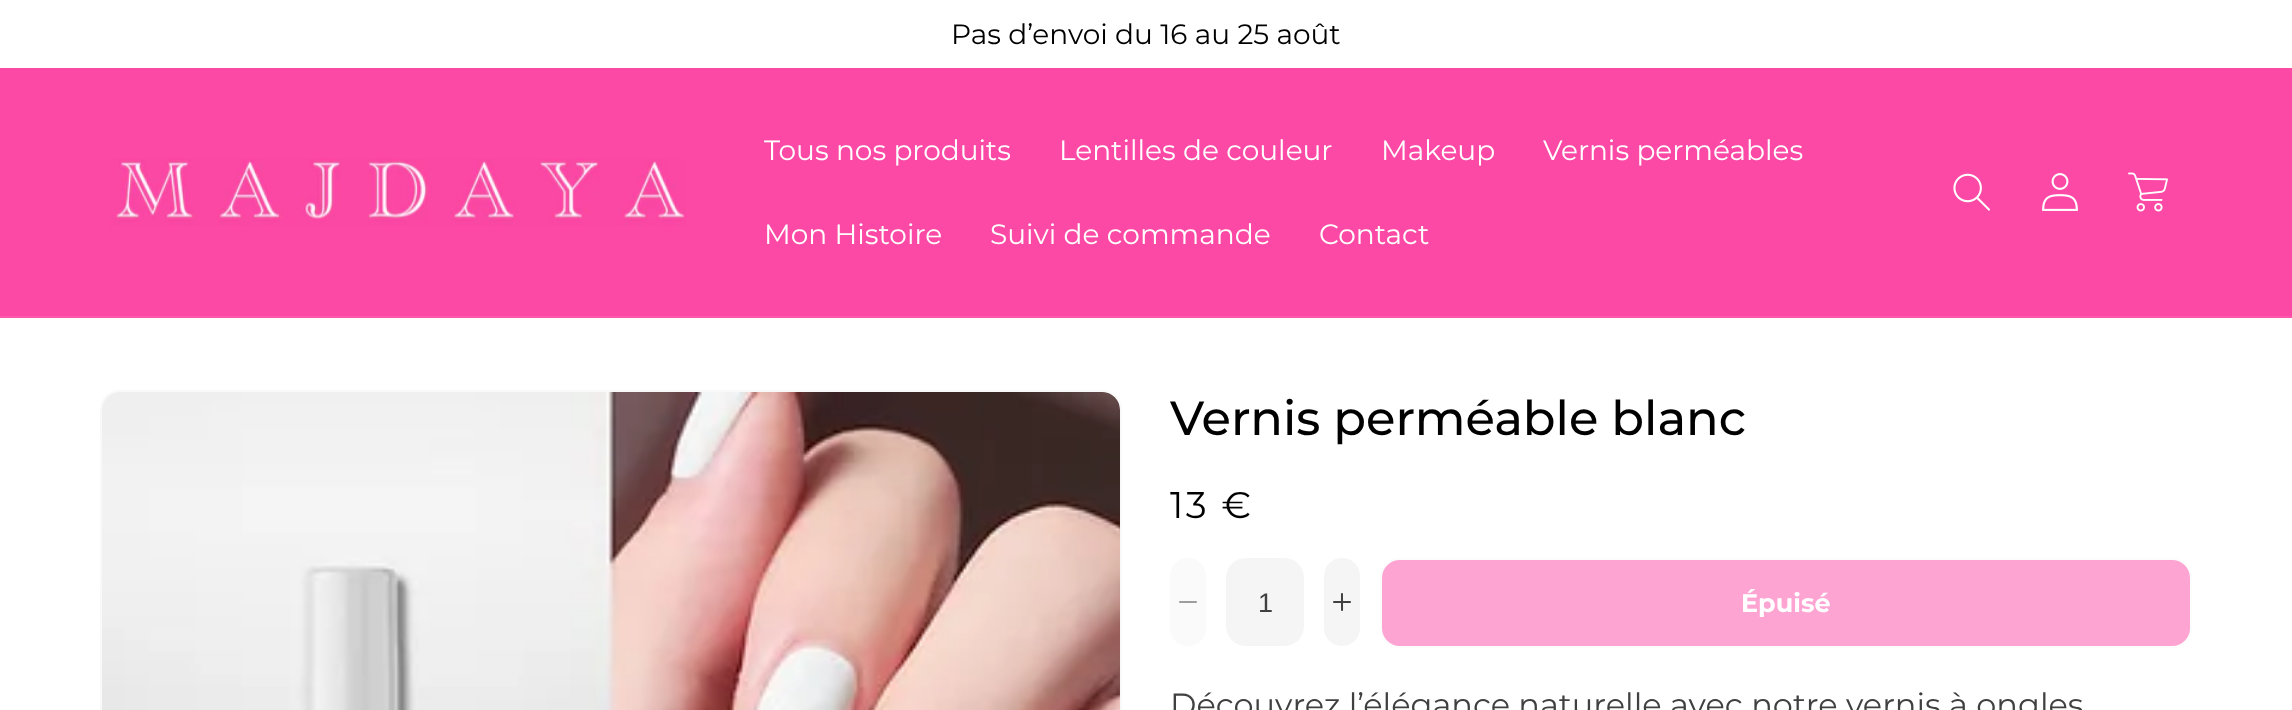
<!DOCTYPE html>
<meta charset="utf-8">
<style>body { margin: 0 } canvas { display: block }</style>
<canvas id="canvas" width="2292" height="710"></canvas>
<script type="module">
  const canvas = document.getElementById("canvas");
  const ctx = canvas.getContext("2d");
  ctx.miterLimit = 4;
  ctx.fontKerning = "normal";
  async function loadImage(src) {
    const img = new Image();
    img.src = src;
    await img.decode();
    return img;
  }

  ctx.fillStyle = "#ffffff";
  ctx.fillRect(0, 0, 2292, 710);
  ctx.font = "28px Montserrat";
  ctx.fillStyle = "#000000";
  ctx.fillText("Pas d’envoi du 16 au 25 août", 951, 44);
  ctx.fillStyle = "#fc49a6";
  ctx.fillRect(0, 68, 2292, 248);
  ctx.fillStyle = "#fc58ad";
  ctx.fillRect(0, 316, 2292, 2);
  ctx.drawImage(await loadImage("img1.png"), 110, 158, 576, 69);
  ctx.fillStyle = "#ffffff";
  ctx.fillText("Tous nos produits", 764, 160);
  ctx.fillText("Lentilles de couleur", 1059, 160);
  ctx.fillText("Makeup", 1381, 160);
  ctx.fillText("Vernis perméables", 1543, 160);
  ctx.fillText("Mon Histoire", 764, 244);
  ctx.fillText("Suivi de commande", 990, 244);
  ctx.fillText("Contact", 1319, 244);
  ctx.drawImage(await loadImage("img2.png"), 1953, 173, 37, 38);
  ctx.drawImage(await loadImage("img3.png"), 2042, 173, 36, 38);
  ctx.drawImage(await loadImage("img4.png"), 2128, 172, 40, 40);
  ctx.beginPath();
  ctx.roundRect(101, 391, 1020, 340, 19);
  ctx.strokeStyle = "#f9f9f9";
  ctx.lineWidth = 2;
  ctx.stroke();
  ctx.drawImage(await loadImage("img5.png"), 102, 392, 1018, 318);
  ctx.font = "500 48px Montserrat";
  ctx.fillStyle = "#000000";
  ctx.fillText("Vernis perméable blanc", 1170, 435);
  ctx.letterSpacing = "2.5px";
  ctx.font = "37px Montserrat";
  ctx.fillText("13 €", 1170, 518);
  ctx.fillStyle = "#fafafa";
  ctx.beginPath();
  ctx.roundRect(1170, 558, 36, 88, 18);
  ctx.fill();
  ctx.drawImage(await loadImage("img6.png"), 1179, 601, 18, 2);
  ctx.fillStyle = "#f5f5f5";
  ctx.beginPath();
  ctx.roundRect(1226, 558, 78, 88, 20);
  ctx.fill();
  ctx.letterSpacing = "0px";
  ctx.font = "27px Liberation Sans";
  ctx.fillStyle = "#404040";
  ctx.fillText("1", 1258, 612);
  ctx.fillStyle = "#f5f5f5";
  ctx.beginPath();
  ctx.roundRect(1324, 558, 36, 88, 18);
  ctx.fill();
  ctx.drawImage(await loadImage("img7.png"), 1333, 593, 18, 18);
  ctx.fillStyle = "#fea4d3";
  ctx.beginPath();
  ctx.roundRect(1381, 559, 810, 88, 19);
  ctx.fill();
  ctx.strokeStyle = "#fcfcfc";
  ctx.stroke();
  ctx.font = "bold 25.5px Montserrat";
  ctx.fillStyle = "#ffffff";
  ctx.fillText("Épuisé", 1741, 612);
  ctx.font = "32px Montserrat";
  ctx.fillStyle = "#404040";
  ctx.fillText("Découvrez l’élégance naturelle avec notre vernis à ongles", 1170, 716);
</script>
